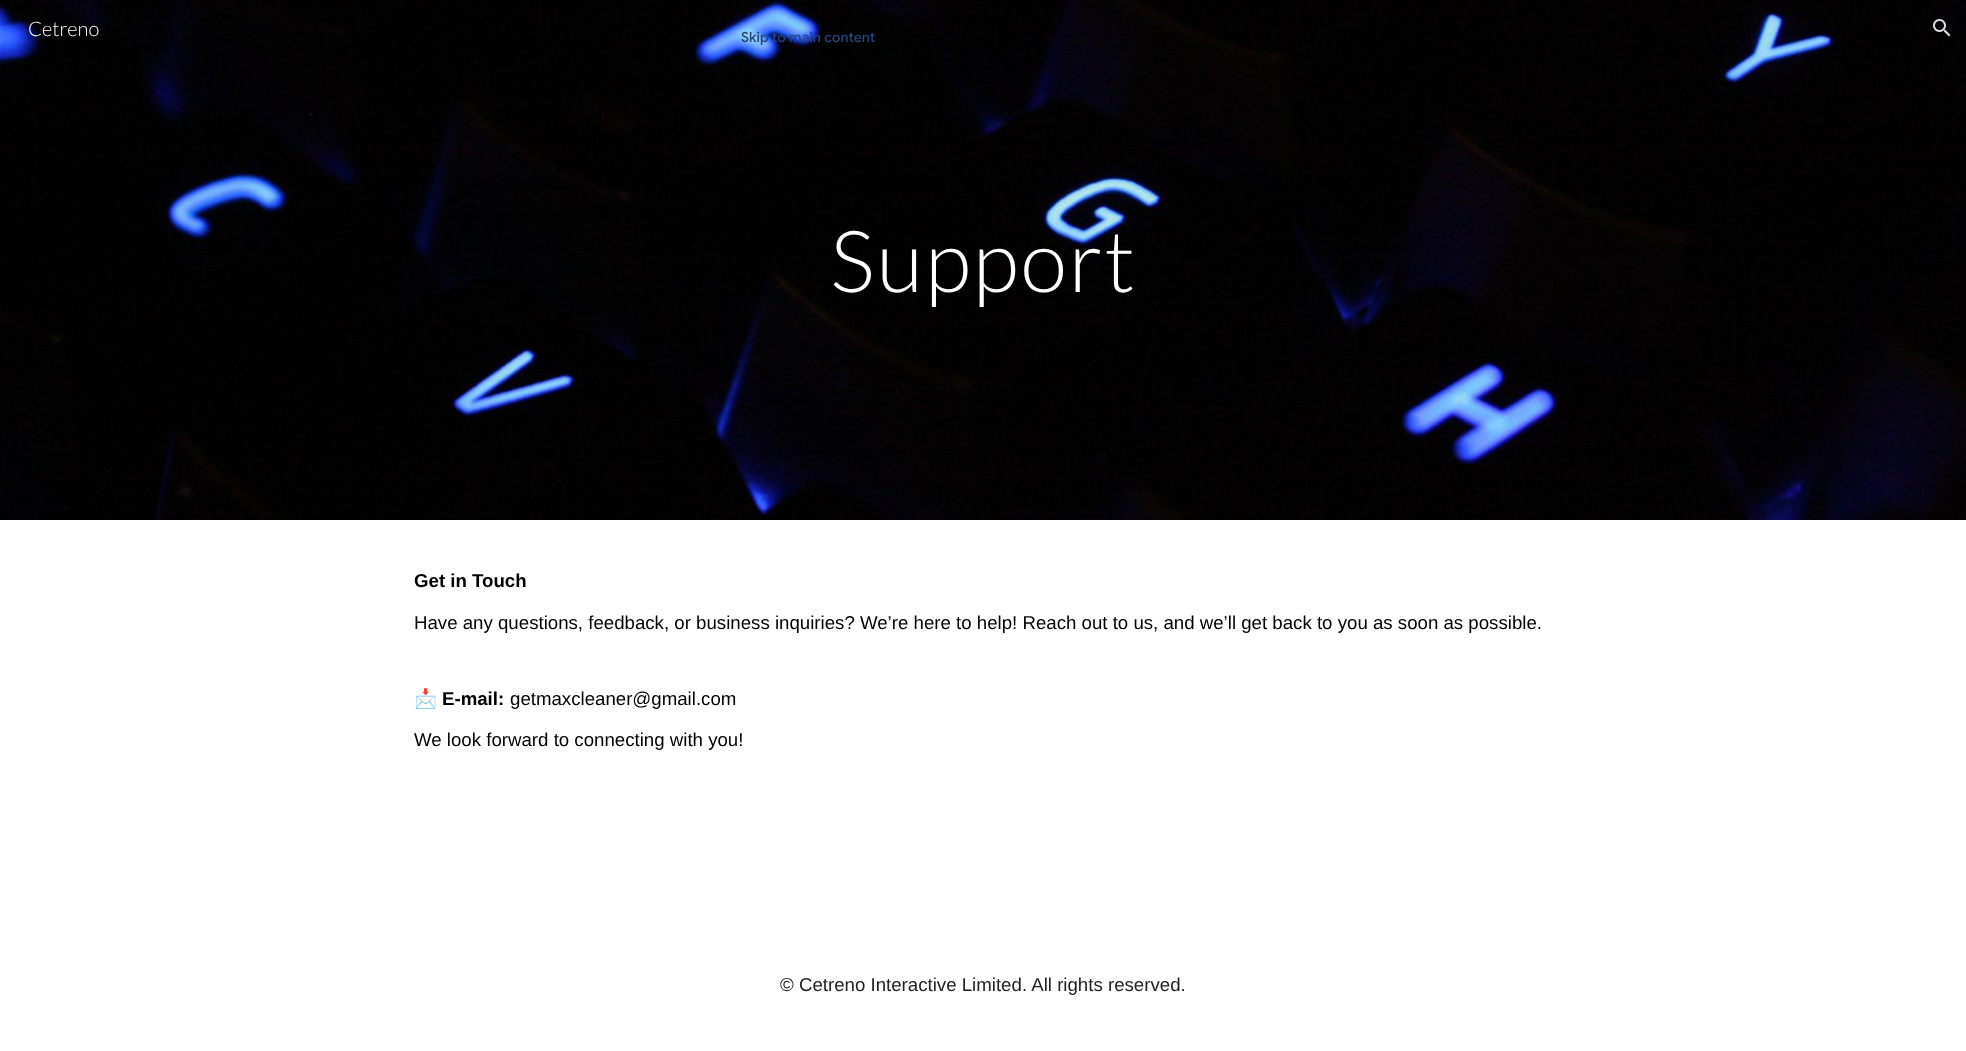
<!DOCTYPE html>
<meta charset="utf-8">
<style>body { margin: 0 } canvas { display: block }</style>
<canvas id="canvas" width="1966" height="1051"></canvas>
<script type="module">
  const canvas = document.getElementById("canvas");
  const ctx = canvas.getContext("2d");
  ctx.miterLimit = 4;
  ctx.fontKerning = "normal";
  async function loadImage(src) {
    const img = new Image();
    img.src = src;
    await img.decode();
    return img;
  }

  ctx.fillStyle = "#ffffff";
  ctx.fillRect(0, 0, 1966, 1051);
  ctx.drawImage(await loadImage("img2.png"), 0, 0, 1966, 520);
  ctx.font = "300 20px Lato";
  ctx.fillText("Cetreno", 28, 36);
  ctx.drawImage(await loadImage("img1.png"), 1933, 19, 18, 18);
  ctx.letterSpacing = "2px";
  ctx.font = "300 85.5px Lato";
  ctx.fillText("Support", 830, 292);
  ctx.letterSpacing = "0px";
  ctx.font = "bold 18.67px Liberation Sans";
  ctx.fillStyle = "#000000";
  ctx.fillText("Get in Touch", 414, 587);
  ctx.font = "18.67px Liberation Sans";
  ctx.fillText("Have any questions, feedback, or business inquiries? We’re here to help! Reach out to us, and we’ll get back to you as soon as possible.", 414, 629);
  ctx.font = "18.67px Noto Color Emoji";
  ctx.fillText("📩", 414, 705);
  ctx.font = "bold 18.67px Liberation Sans";
  ctx.fillText("E-mail:", 442, 705);
  ctx.font = "18.67px Liberation Sans";
  ctx.fillText("getmaxcleaner@gmail.com", 510, 705);
  ctx.fillText("We look forward to connecting with you!", 414, 746);
  ctx.fillStyle = "#212121";
  ctx.fillText("© Cetreno Interactive Limited. All rights reserved.", 780, 991);
  ctx.letterSpacing = "0.1px";
  ctx.font = "500 14px Google Sans";
  ctx.fillStyle = "#29437a";
  ctx.fillText("Skip to main content", 741, 42);
</script>
